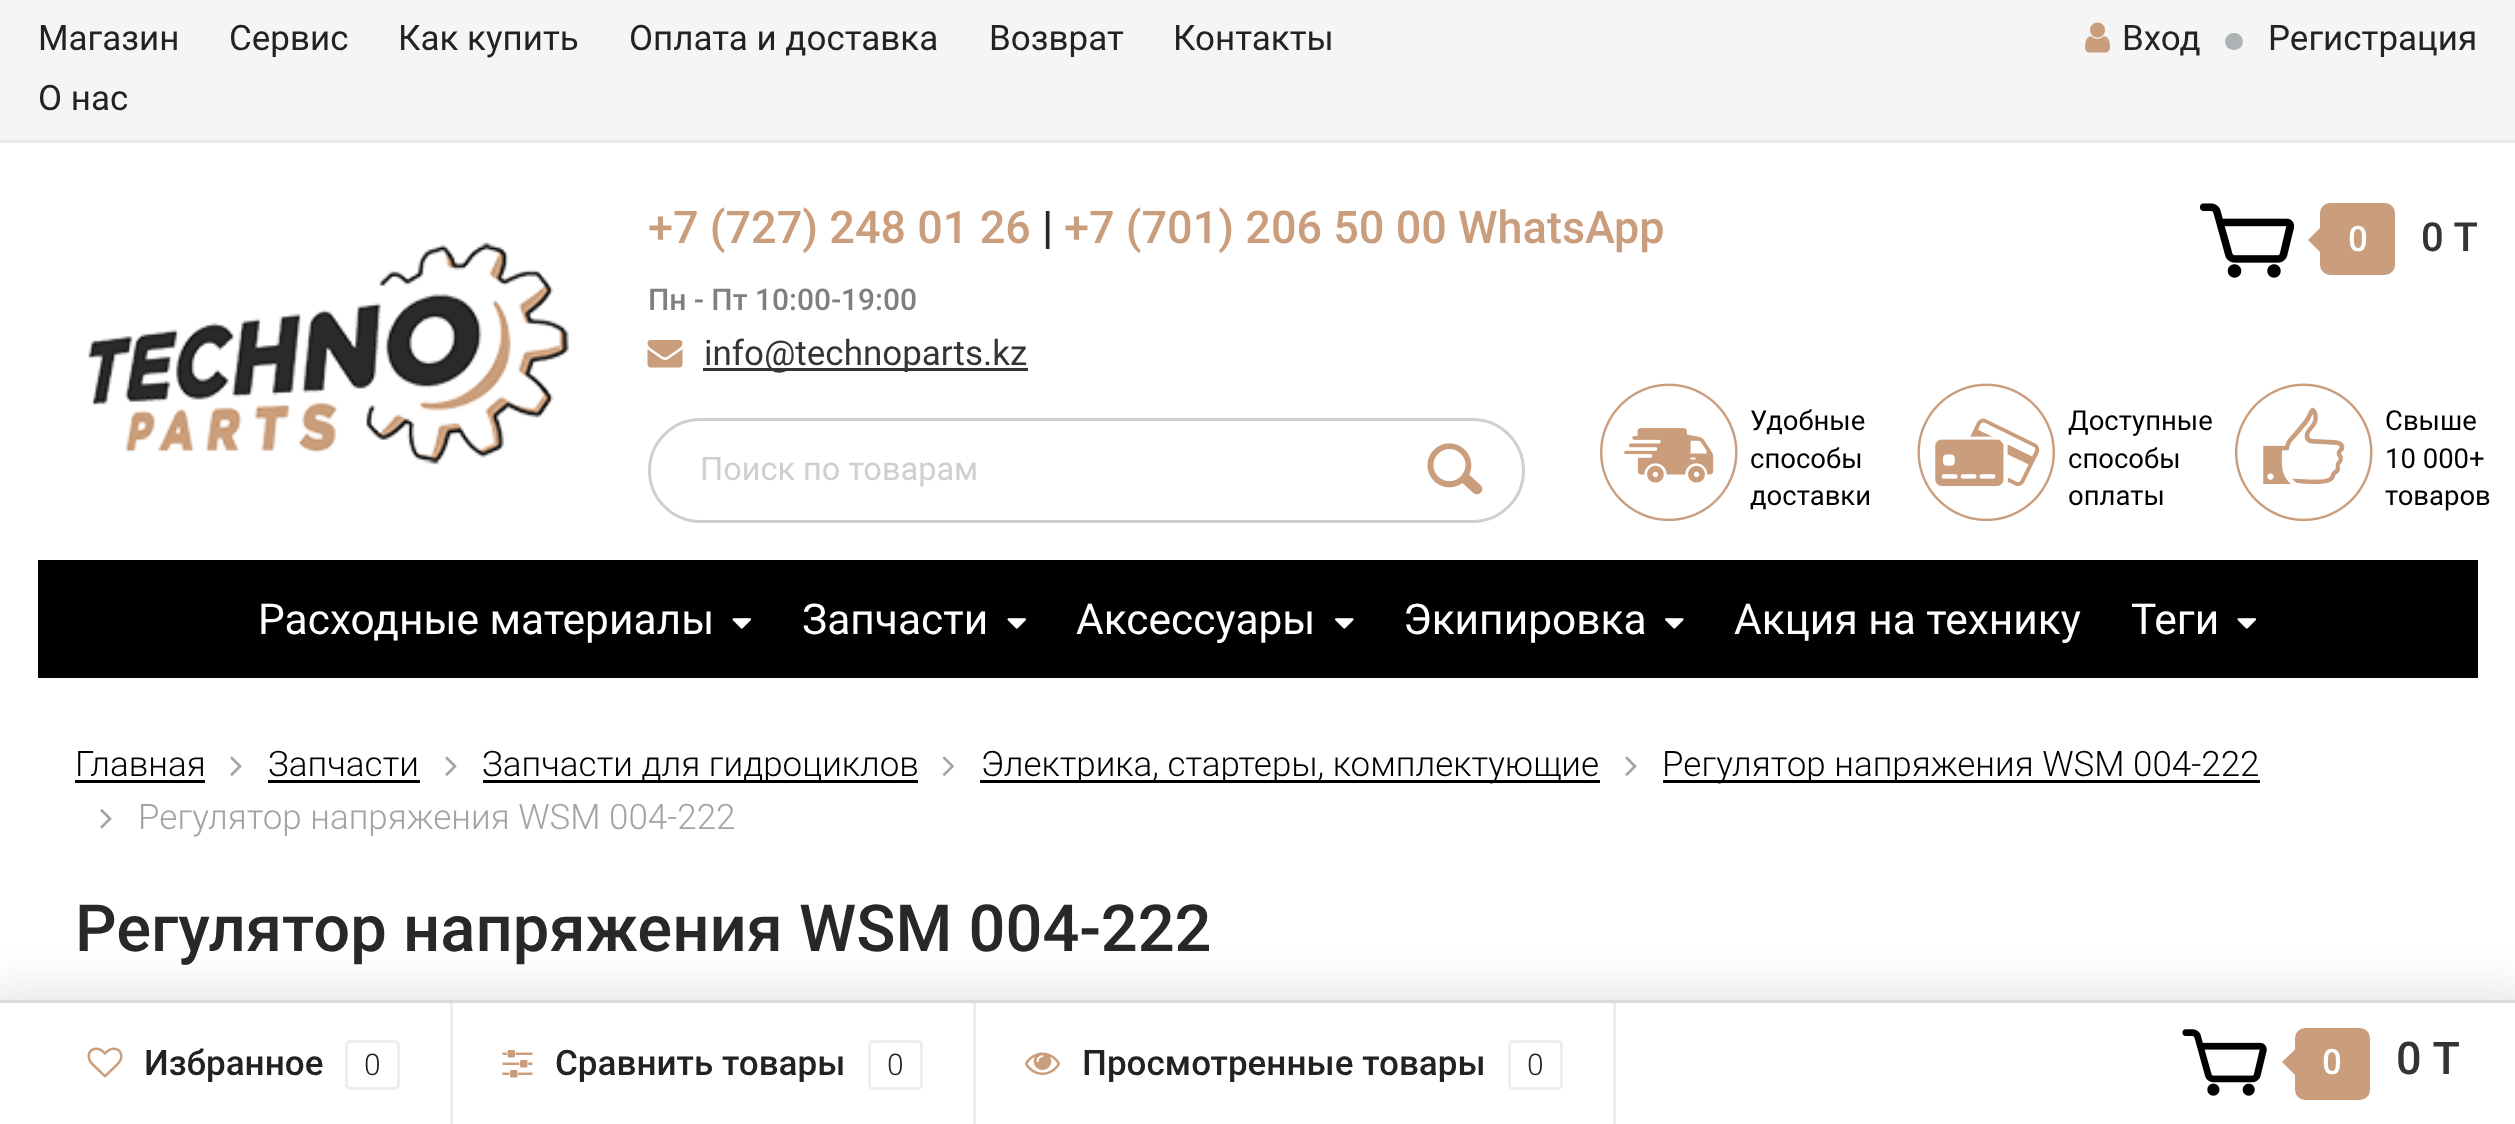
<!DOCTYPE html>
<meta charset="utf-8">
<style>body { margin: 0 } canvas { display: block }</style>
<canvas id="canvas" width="2515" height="1124"></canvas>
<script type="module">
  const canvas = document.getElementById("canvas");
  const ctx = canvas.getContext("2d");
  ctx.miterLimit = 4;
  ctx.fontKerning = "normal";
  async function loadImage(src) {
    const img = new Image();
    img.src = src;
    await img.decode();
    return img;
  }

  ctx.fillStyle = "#ffffff";
  ctx.fillRect(0, 0, 2515, 1124);
  ctx.fillStyle = "#f5f5f5";
  ctx.fillRect(0, 0, 2515, 140);
  ctx.fillStyle = "#eaeaea";
  ctx.fillRect(0, 140, 2515, 3);
  ctx.font = "35px Roboto";
  ctx.fillStyle = "#222222";
  ctx.fillText("Магазин", 38, 50);
  ctx.fillText("Сервис", 229, 50);
  ctx.fillText("Как купить", 398, 50);
  ctx.fillText("Оплата и доставка", 629, 50);
  ctx.fillText("Возврат", 989, 50);
  ctx.fillText("Контакты", 1173, 50);
  ctx.fillText("О нас", 38, 110);
  ctx.drawImage(await loadImage("img1.png"), 2085, 22, 25, 31);
  ctx.fillText("Вход", 2122, 50);
  ctx.fillStyle = "#acb3b4";
  ctx.beginPath();
  ctx.roundRect(2225, 33, 18, 17, 8.5);
  ctx.fill();
  ctx.fillStyle = "#222222";
  ctx.fillText("Регистрация", 2268, 50);
  ctx.drawImage(await loadImage("img2.png"), 88, 242, 481, 223);
  ctx.font = "500 45px Roboto";
  ctx.fillStyle = "#ca9d7c";
  ctx.fillText("+7 (727) 248 01 26", 648, 243);
  ctx.fillStyle = "#282828";
  ctx.fillText("|", 1042, 243);
  ctx.fillStyle = "#ca9d7c";
  ctx.fillText("+7 (701) 206 50 00 WhatsApp", 1064, 243);
  ctx.font = "500 30px Roboto";
  ctx.fillStyle = "#7f7f7f";
  ctx.fillText("Пн - Пт 10:00-19:00", 648, 310);
  ctx.drawImage(await loadImage("img3.png"), 647, 340, 36, 28);
  ctx.fillStyle = "#343434";
  ctx.fillRect(703, 368, 325, 3);
  ctx.font = "35px Roboto";
  ctx.fillText("info@technoparts.kz", 704, 365);
  ctx.drawImage(await loadImage("img4.png"), 2200, 203, 95, 75);
  ctx.fillStyle = "#ca9d7c";
  ctx.beginPath();
  ctx.roundRect(2325, 208, 65, 62, 5);
  ctx.fill();
  ctx.strokeStyle = "#ca9d7c";
  ctx.lineWidth = 10;
  ctx.stroke();
  ctx.beginPath();
  ctx.moveTo(2330, 218);
  ctx.lineTo(2330, 262);
  ctx.lineTo(2308, 240);
  ctx.closePath();
  ctx.fill();
  ctx.font = "500 35px Roboto";
  ctx.fillStyle = "#ffffff";
  ctx.fillText("0", 2348, 251);
  ctx.wordSpacing = "1px";
  ctx.font = "500 40px Roboto";
  ctx.fillStyle = "#343434";
  ctx.fillText("0 T", 2421, 251);
  ctx.beginPath();
  ctx.roundRect(649.5, 419.5, 874, 102, 51);
  ctx.strokeStyle = "#d0cfcf";
  ctx.lineWidth = 3;
  ctx.stroke();
  ctx.wordSpacing = "0px";
  ctx.font = "32.5px Roboto";
  ctx.fillStyle = "#cfcfcf";
  ctx.fillText("Поиск по товарам", 700, 480);
  ctx.drawImage(await loadImage("img5.png"), 1427, 443, 56, 52);
  ctx.drawImage(await loadImage("img6.png"), 1600, 383, 138, 139);
  ctx.font = "27.5px Roboto";
  ctx.fillStyle = "#000000";
  ctx.fillText("Удобные", 1750, 430);
  ctx.fillText("способы", 1750, 468);
  ctx.fillText("доставки", 1750, 505);
  ctx.drawImage(await loadImage("img7.png"), 1917, 383, 138, 139);
  ctx.fillText("Доступные", 2068, 430);
  ctx.fillText("способы", 2068, 468);
  ctx.fillText("оплаты", 2068, 505);
  ctx.drawImage(await loadImage("img8.png"), 2235, 383, 138, 139);
  ctx.fillText("Свыше", 2385, 430);
  ctx.fillText("10 000+", 2385, 468);
  ctx.fillText("товаров", 2385, 505);
  ctx.fillRect(38, 560, 2440, 118);
  ctx.font = "42.5px Roboto";
  ctx.fillStyle = "#ffffff";
  ctx.fillText("Расходные материалы", 258, 634);
  ctx.drawImage(await loadImage("img9.png"), 732, 618, 20, 11);
  ctx.fillText("Запчасти", 802, 634);
  ctx.drawImage(await loadImage("img9.png"), 1007, 618, 20, 11);
  ctx.fillText("Аксессуары", 1076, 634);
  ctx.drawImage(await loadImage("img10.png"), 1335, 618, 19, 11);
  ctx.fillText("Экипировка", 1403, 634);
  ctx.drawImage(await loadImage("img10.png"), 1665, 618, 19, 11);
  ctx.fillText("Акция на технику", 1734, 634);
  ctx.fillText("Теги", 2131, 634);
  ctx.drawImage(await loadImage("img9.png"), 2237, 618, 20, 11);
  ctx.font = "300 35px Roboto";
  ctx.fillStyle = "#000000";
  ctx.fillText("Главная", 75, 776);
  ctx.fillRect(75, 780, 130, 3);
  ctx.drawImage(await loadImage("img11.png"), 230, 756, 12, 20);
  ctx.fillText("Запчасти", 268, 776);
  ctx.fillRect(268, 780, 152, 3);
  ctx.drawImage(await loadImage("img11.png"), 445, 756, 12, 20);
  ctx.fillRect(483, 780, 435, 3);
  ctx.fillText("Запчасти для гидроциклов", 482, 776);
  ctx.drawImage(await loadImage("img12.png"), 942, 756, 12, 20);
  ctx.fillRect(980, 780, 620, 3);
  ctx.fillText("Электрика, стартеры, комплектующие", 981, 776);
  ctx.drawImage(await loadImage("img11.png"), 1625, 756, 12, 20);
  ctx.fillRect(1663, 780, 597, 3);
  ctx.fillText("Регулятор напряжения WSM 004-222", 1662, 776);
  ctx.drawImage(await loadImage("img13.png"), 100, 809, 12, 20);
  ctx.fillStyle = "#a3a3a3";
  ctx.fillText("Регулятор напряжения WSM 004-222", 138, 829);
  ctx.font = "500 65px Roboto";
  ctx.fillStyle = "#282828";
  ctx.fillText("Регулятор напряжения WSM 004-222", 75, 951);
  ctx.fillStyle = "rgba(50, 50, 50, 0.15)";
  ctx.filter = "blur(25px)";
  ctx.beginPath();
  ctx.rect(-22, 995, 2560, 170);
  ctx.fill();
  ctx.filter = "none";
  ctx.fillStyle = "#ffffff";
  ctx.fillRect(0, 1003, 2515, 121);
  ctx.fillStyle = "#dbdbdb";
  ctx.fillRect(0, 1000, 2515, 3);
  ctx.fillStyle = "#ededed";
  ctx.fillRect(450, 1003, 3, 121);
  ctx.drawImage(await loadImage("img14.png"), 87, 1047, 36, 31);
  ctx.font = "500 35px Roboto";
  ctx.fillStyle = "#222222";
  ctx.fillText("Избранное", 144, 1075);
  ctx.beginPath();
  ctx.roundRect(346.5, 1041.5, 52, 47, 3.5);
  ctx.strokeStyle = "#eeeeee";
  ctx.stroke();
  ctx.font = "300 30px Roboto";
  ctx.fillText("0", 364, 1075);
  ctx.fillStyle = "#ededed";
  ctx.fillRect(973, 1003, 3, 121);
  ctx.drawImage(await loadImage("img15.png"), 502, 1050, 31, 28);
  ctx.font = "500 35px Roboto";
  ctx.fillStyle = "#222222";
  ctx.fillText("Сравнить товары", 555, 1075);
  ctx.beginPath();
  ctx.roundRect(869.5, 1041.5, 52, 47, 3.5);
  ctx.stroke();
  ctx.font = "300 30px Roboto";
  ctx.fillText("0", 887, 1075);
  ctx.fillStyle = "#ededed";
  ctx.fillRect(1613, 1003, 3, 121);
  ctx.drawImage(await loadImage("img16.png"), 1025, 1052, 35, 23);
  ctx.font = "500 35px Roboto";
  ctx.fillStyle = "#222222";
  ctx.fillText("Просмотренные товары", 1082, 1075);
  ctx.beginPath();
  ctx.roundRect(1509.5, 1041.5, 52, 47, 3.5);
  ctx.stroke();
  ctx.font = "300 30px Roboto";
  ctx.fillText("0", 1527, 1075);
  ctx.drawImage(await loadImage("img17.png"), 2182, 1029, 85, 67);
  ctx.fillStyle = "#ca9d7c";
  ctx.beginPath();
  ctx.roundRect(2300, 1033, 65, 62, 5);
  ctx.fill();
  ctx.strokeStyle = "#ca9d7c";
  ctx.lineWidth = 10;
  ctx.stroke();
  ctx.beginPath();
  ctx.moveTo(2305, 1040);
  ctx.lineTo(2305, 1085);
  ctx.lineTo(2282, 1062);
  ctx.closePath();
  ctx.fill();
  ctx.font = "500 35px Roboto";
  ctx.fillStyle = "#ffffff";
  ctx.fillText("0", 2322, 1074);
  ctx.wordSpacing = "1px";
  ctx.font = "500 45px Roboto";
  ctx.fillStyle = "#343434";
  ctx.fillText("0 T", 2396, 1074);
</script>
